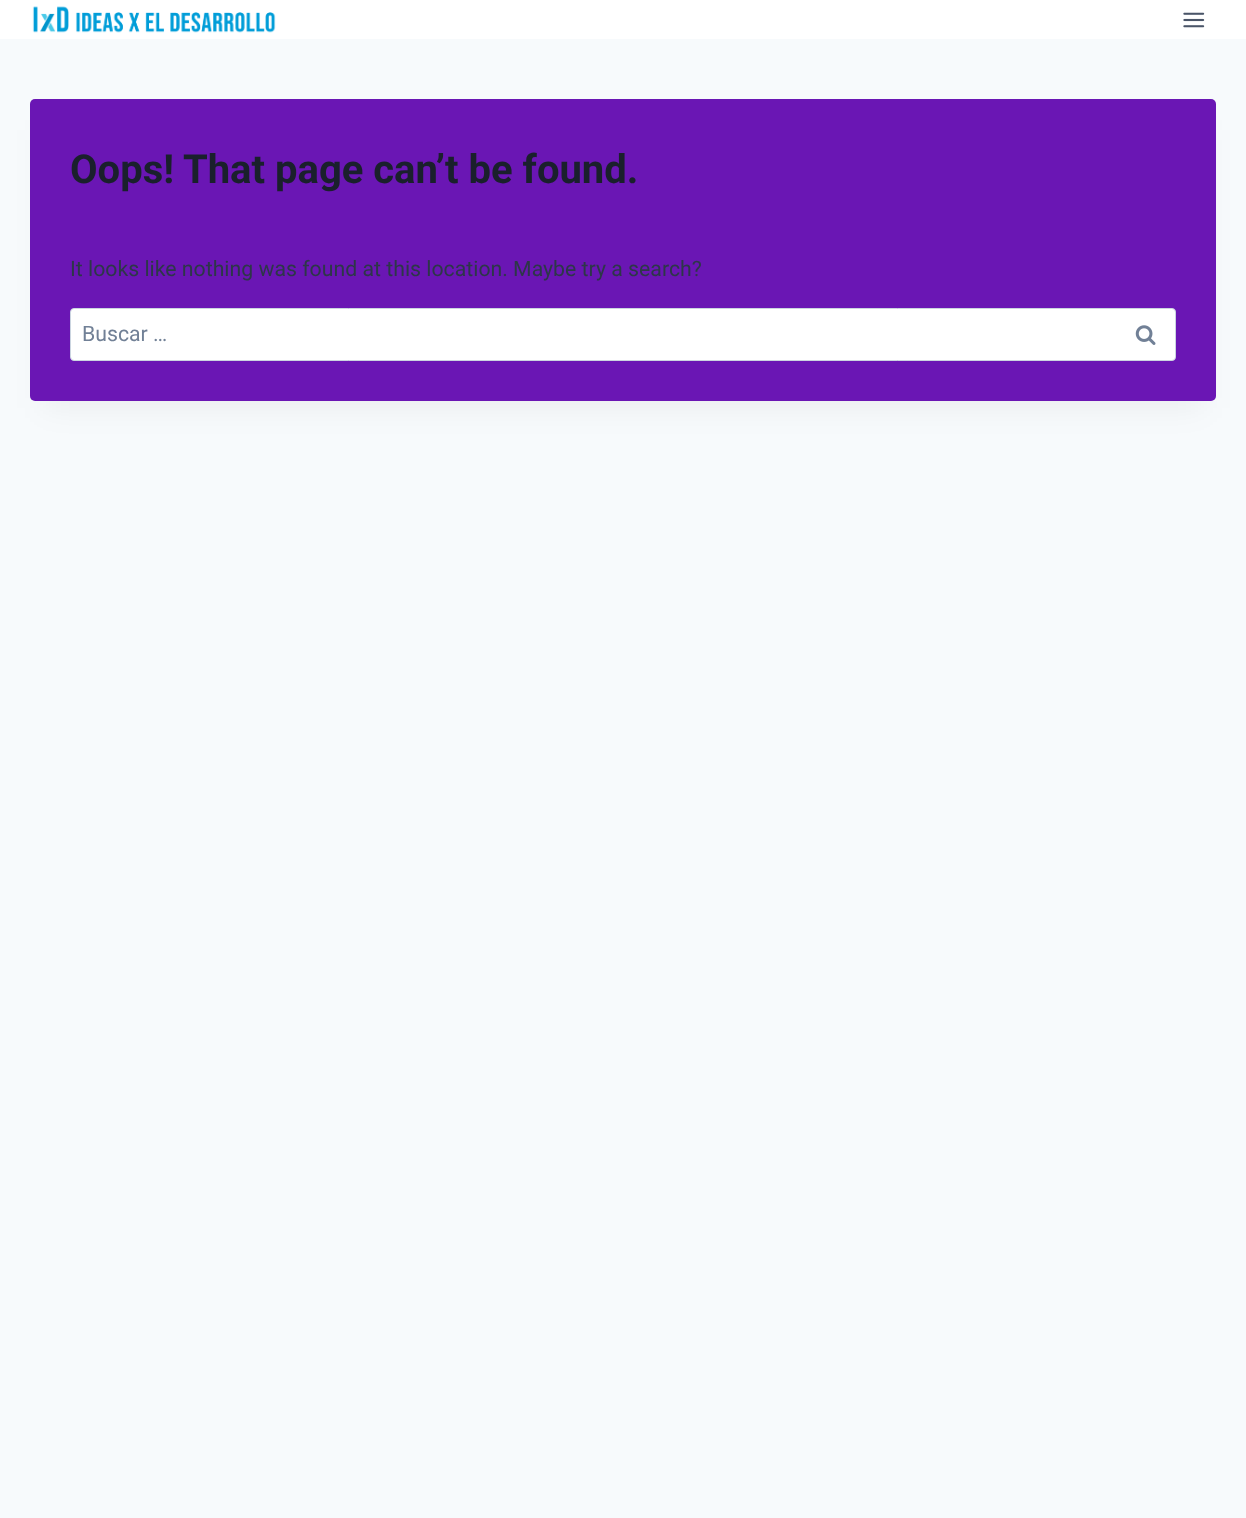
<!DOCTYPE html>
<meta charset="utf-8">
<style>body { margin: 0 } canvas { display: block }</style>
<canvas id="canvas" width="1246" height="1518"></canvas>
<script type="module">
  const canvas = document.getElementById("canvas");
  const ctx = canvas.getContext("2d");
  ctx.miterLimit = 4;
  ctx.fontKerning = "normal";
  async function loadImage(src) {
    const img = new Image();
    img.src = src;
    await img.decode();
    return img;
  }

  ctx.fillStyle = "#f7fafc";
  ctx.fillRect(0, 0, 1246, 1518);
  ctx.fillStyle = "#ffffff";
  ctx.fillRect(0, 0, 1246, 39);
  ctx.drawImage(await loadImage("img1.png"), 32, 6, 244, 27);
  ctx.drawImage(await loadImage("img2.png"), 1183, 12, 22, 16);
  ctx.fillStyle = "rgba(0, 0, 0, 0.05)";
  ctx.filter = "blur(15.5px)";
  ctx.beginPath();
  ctx.rect(43, 130, 1161, 278);
  ctx.fill();
  ctx.filter = "none";
  ctx.fillStyle = "#6a16b4";
  ctx.beginPath();
  ctx.roundRect(30, 99, 1186, 302, 5);
  ctx.fill();
  ctx.font = "bold 40px Roboto";
  ctx.fillStyle = "#1a202c";
  ctx.fillText("Oops! That page can’t be found.", 70, 183);
  ctx.font = "21.25px Roboto";
  ctx.fillStyle = "#2d3748";
  ctx.fillText("It looks like nothing was found at this location. Maybe try a search?", 70, 276);
  ctx.fillStyle = "#ffffff";
  ctx.beginPath();
  ctx.roundRect(70.5, 308.5, 1105, 52, 3.5);
  ctx.fill();
  ctx.strokeStyle = "#cbd5e0";
  ctx.stroke();
  ctx.fillStyle = "#718096";
  ctx.fillText("Buscar …", 82, 341);
  ctx.drawImage(await loadImage("img3.png"), 1135, 325, 21, 20);
</script>
